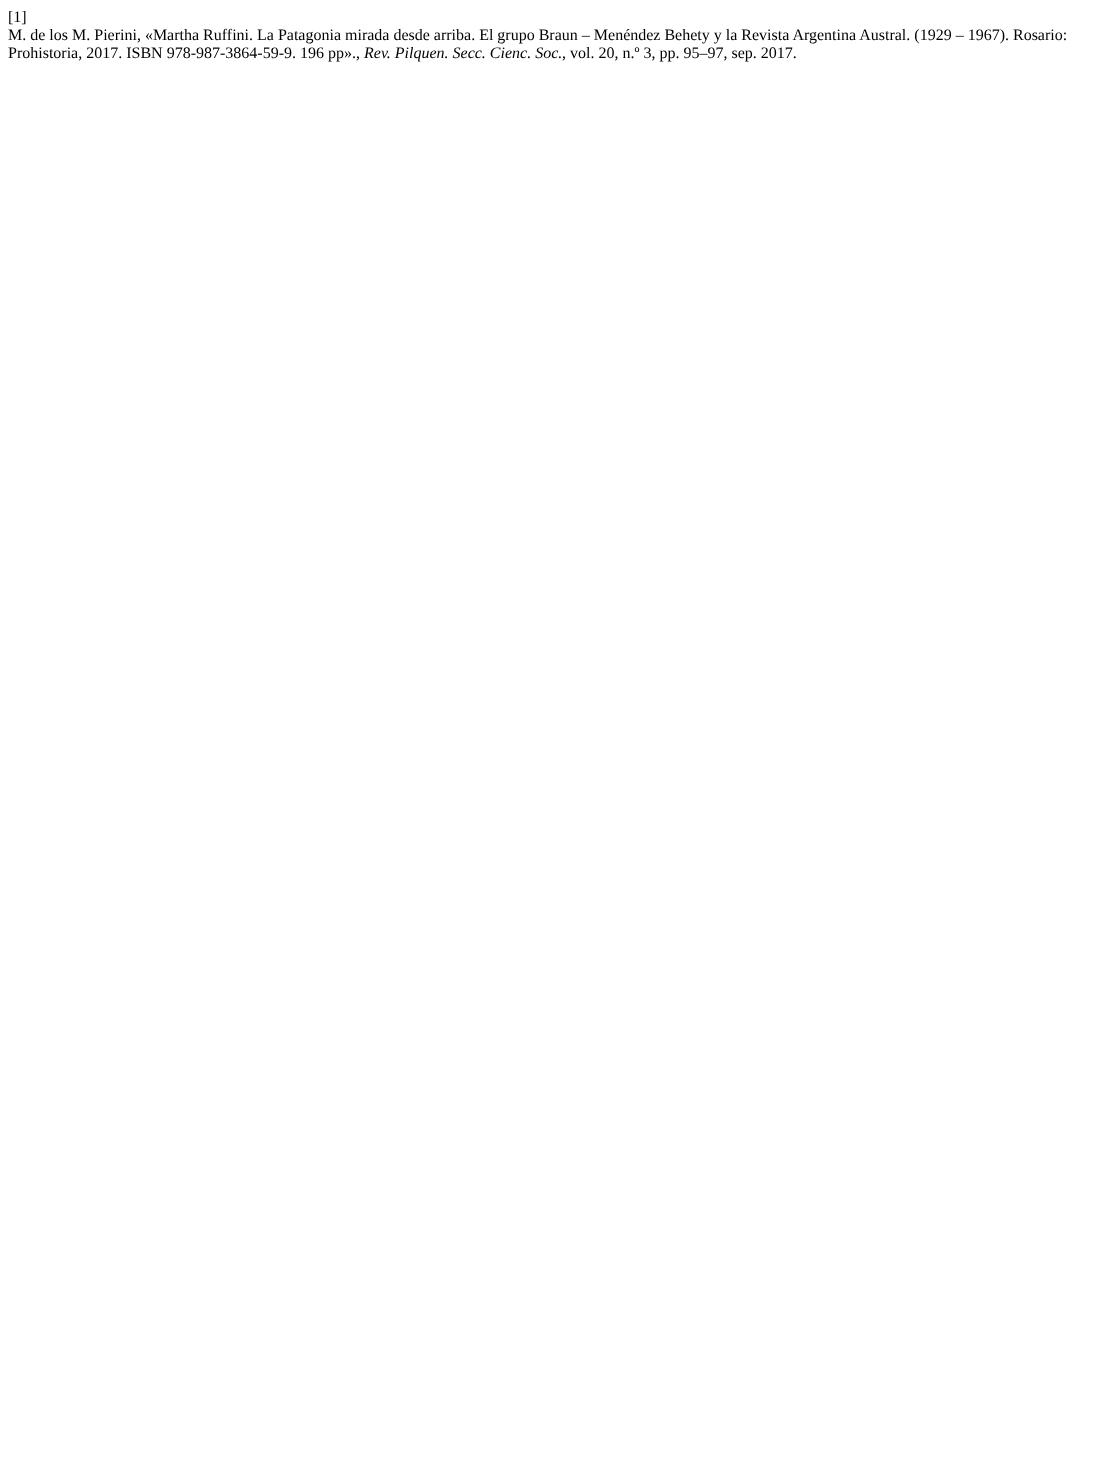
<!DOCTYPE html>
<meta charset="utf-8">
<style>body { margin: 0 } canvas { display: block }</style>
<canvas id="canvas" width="1113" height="1459"></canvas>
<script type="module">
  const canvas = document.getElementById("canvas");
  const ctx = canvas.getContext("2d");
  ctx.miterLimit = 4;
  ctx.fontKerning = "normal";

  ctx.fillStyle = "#ffffff";
  ctx.fillRect(0, 0, 1113, 1459);
  ctx.font = "16px Liberation Serif";
  ctx.fillStyle = "#000000";
  ctx.fillText("[1]", 8, 22);
  ctx.fillText("M. de los M. Pierini, «Martha Ruffini. La Patagonia mirada desde arriba. El grupo Braun – Menéndez Behety y la Revista Argentina Austral. (1929 – 1967). Rosario:", 8, 40);
  ctx.fillText("Prohistoria, 2017. ISBN 978-987-3864-59-9. 196 pp».,", 8, 58);
  ctx.font = "italic 16px Liberation Serif";
  ctx.fillText("Rev. Pilquen. Secc. Cienc. Soc.", 364, 58);
  ctx.font = "16px Liberation Serif";
  ctx.fillText(", vol. 20, n.º 3, pp. 95–97, sep. 2017.", 562, 58);
</script>
